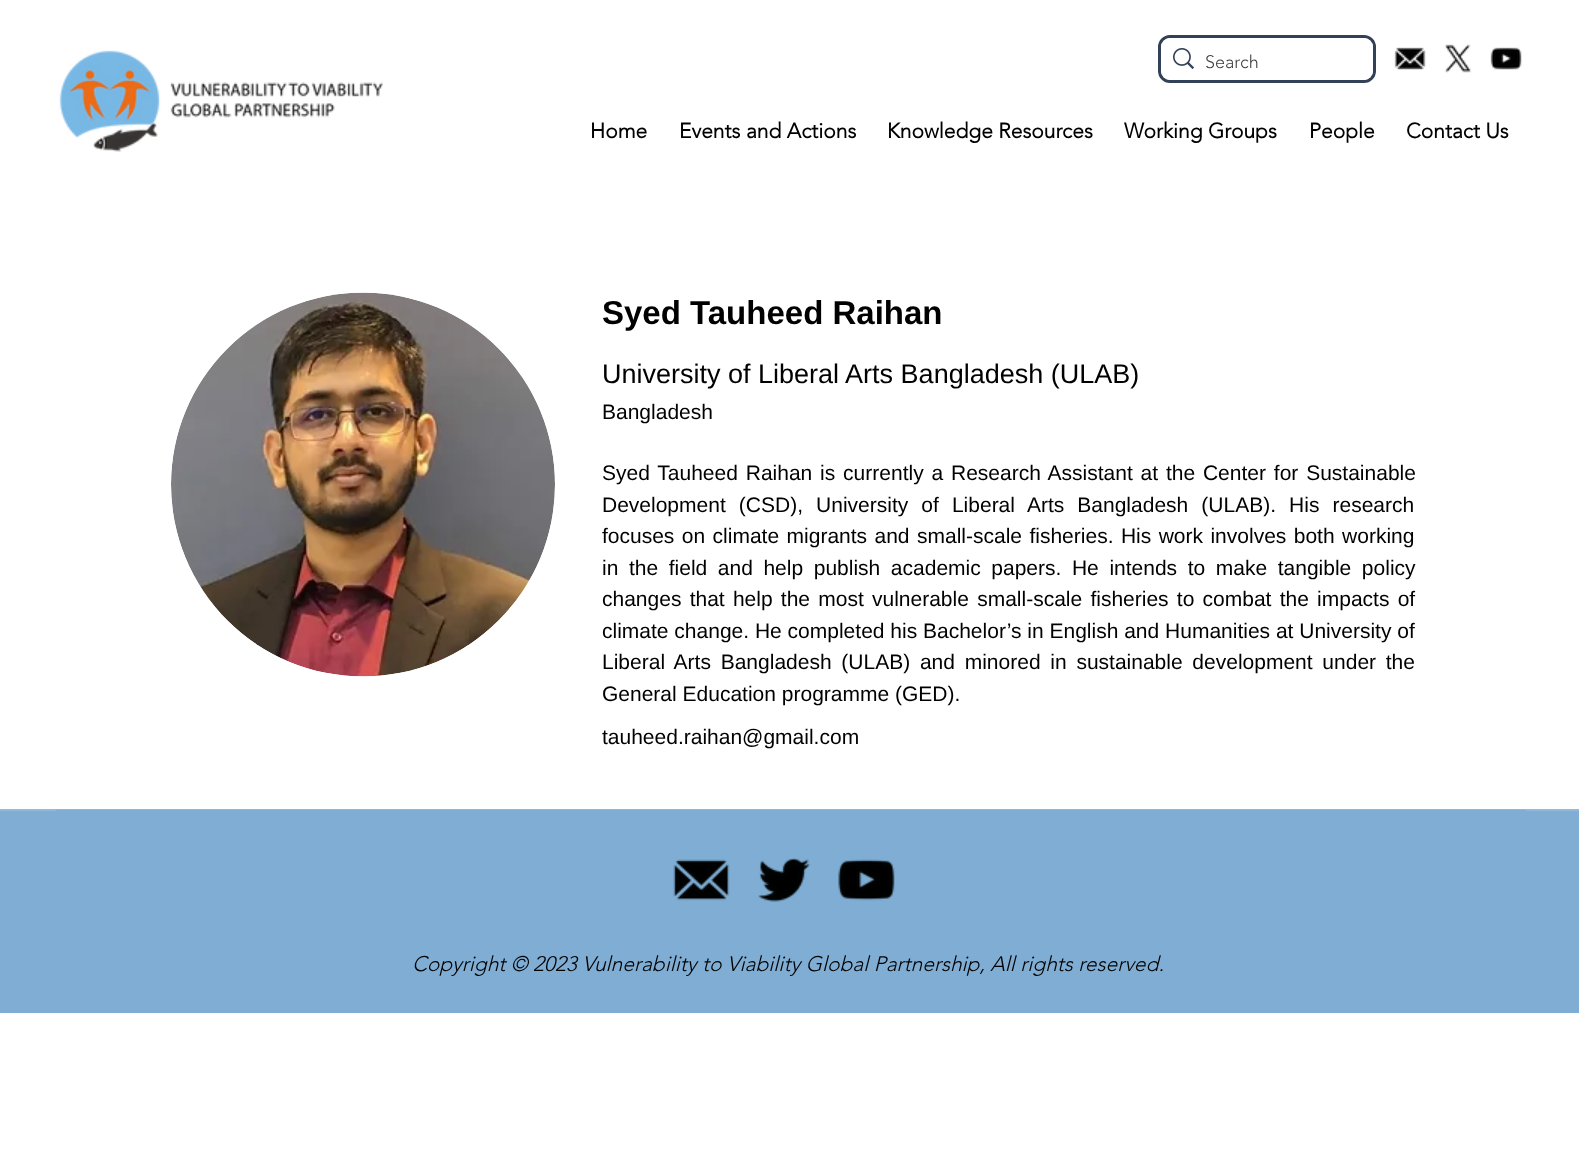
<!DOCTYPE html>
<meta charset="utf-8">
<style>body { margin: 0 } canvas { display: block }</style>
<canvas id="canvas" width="1579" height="1149"></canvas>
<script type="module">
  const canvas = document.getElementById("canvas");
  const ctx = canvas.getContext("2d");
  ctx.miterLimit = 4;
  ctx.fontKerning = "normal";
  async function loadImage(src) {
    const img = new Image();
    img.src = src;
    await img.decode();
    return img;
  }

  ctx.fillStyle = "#ffffff";
  ctx.fillRect(0, 0, 1579, 1149);
  ctx.drawImage(await loadImage("img1.png"), 59, 50, 324, 102);
  ctx.beginPath();
  ctx.roundRect(1159.5, 36.5, 215, 45, 10.5);
  ctx.strokeStyle = "#324158";
  ctx.lineWidth = 3;
  ctx.stroke();
  ctx.beginPath();
  ctx.roundRect(1161, 38, 212, 42, 9);
  ctx.fill();
  ctx.drawImage(await loadImage("img2.png"), 1173, 48, 21, 21);
  ctx.font = "300 18px 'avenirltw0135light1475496'";
  ctx.fillStyle = "#404040";
  ctx.fillText("Search", 1205, 68);
  ctx.drawImage(await loadImage("img3.png"), 1394, 47, 32, 23);
  ctx.drawImage(await loadImage("img4.png"), 1444, 44, 28, 29);
  ctx.drawImage(await loadImage("img5.png"), 1490, 47, 32, 23);
  ctx.font = "bold 21px 'avenirltw0135light1475496'";
  ctx.fillStyle = "#000000";
  ctx.fillText("Home", 590, 138);
  ctx.fillText("Events and Actions", 679, 138);
  ctx.fillText("Knowledge Resources", 887, 138);
  ctx.fillText("Working Groups", 1124, 138);
  ctx.fillText("People", 1309, 138);
  ctx.fillText("Contact Us", 1406, 138);
  ctx.drawImage(await loadImage("img6.png"), 171, 292, 384, 385);
  ctx.font = "bold 33px Liberation Sans";
  ctx.fillText("Syed Tauheed Raihan", 602, 324);
  ctx.font = "27px Liberation Sans";
  ctx.fillText("University of Liberal Arts Bangladesh (ULAB)", 602, 383);
  ctx.font = "21px Liberation Sans";
  ctx.fillText("Bangladesh", 602, 419);
  ctx.wordSpacing = "2px";
  ctx.fillText("Syed Tauheed Raihan is currently a Research Assistant at the Center for Sustainable", 602, 480);
  ctx.wordSpacing = "7.25px";
  ctx.fillText("Development (CSD), University of Liberal Arts Bangladesh (ULAB). His research", 602, 512);
  ctx.wordSpacing = "1.6px";
  ctx.fillText("focuses on climate migrants and small-scale fisheries. His work involves both working", 602, 543);
  ctx.wordSpacing = "4.75px";
  ctx.fillText("in the field and help publish academic papers. He intends to make tangible policy", 602, 575);
  ctx.wordSpacing = "2.4px";
  ctx.fillText("changes that help the most vulnerable small-scale fisheries to combat the impacts of", 602, 606);
  ctx.wordSpacing = "0px";
  ctx.fillText("climate change. He completed his Bachelor’s in English and Humanities at University of", 602, 638);
  ctx.wordSpacing = "3.9px";
  ctx.fillText("Liberal Arts Bangladesh (ULAB) and minored in sustainable development under the", 602, 669);
  ctx.wordSpacing = "0px";
  ctx.fillText("General Education programme (GED).", 602, 701);
  ctx.fillText("tauheed.raihan@gmail.com", 602, 744);
  ctx.fillStyle = "#7fadd3";
  ctx.fillRect(0, 811, 1579, 202);
  ctx.fillStyle = "#92b9da";
  ctx.fillRect(0, 809, 1579, 2);
  ctx.fillStyle = "#7fadd3";
  ctx.fillRect(56, 810, 1470, 1);
  ctx.drawImage(await loadImage("img7.png"), 673, 859, 57, 42);
  ctx.drawImage(await loadImage("img8.png"), 758, 858, 53, 44);
  ctx.drawImage(await loadImage("img9.png"), 838, 859, 57, 42);
  ctx.font = "italic 300 21px 'avenirltw0135light1475496'";
  ctx.fillStyle = "#000000";
  ctx.fillText("Copyright © 2023 Vulnerability to Viability Global Partnership, All rights reserved.", 412, 971);
</script>
